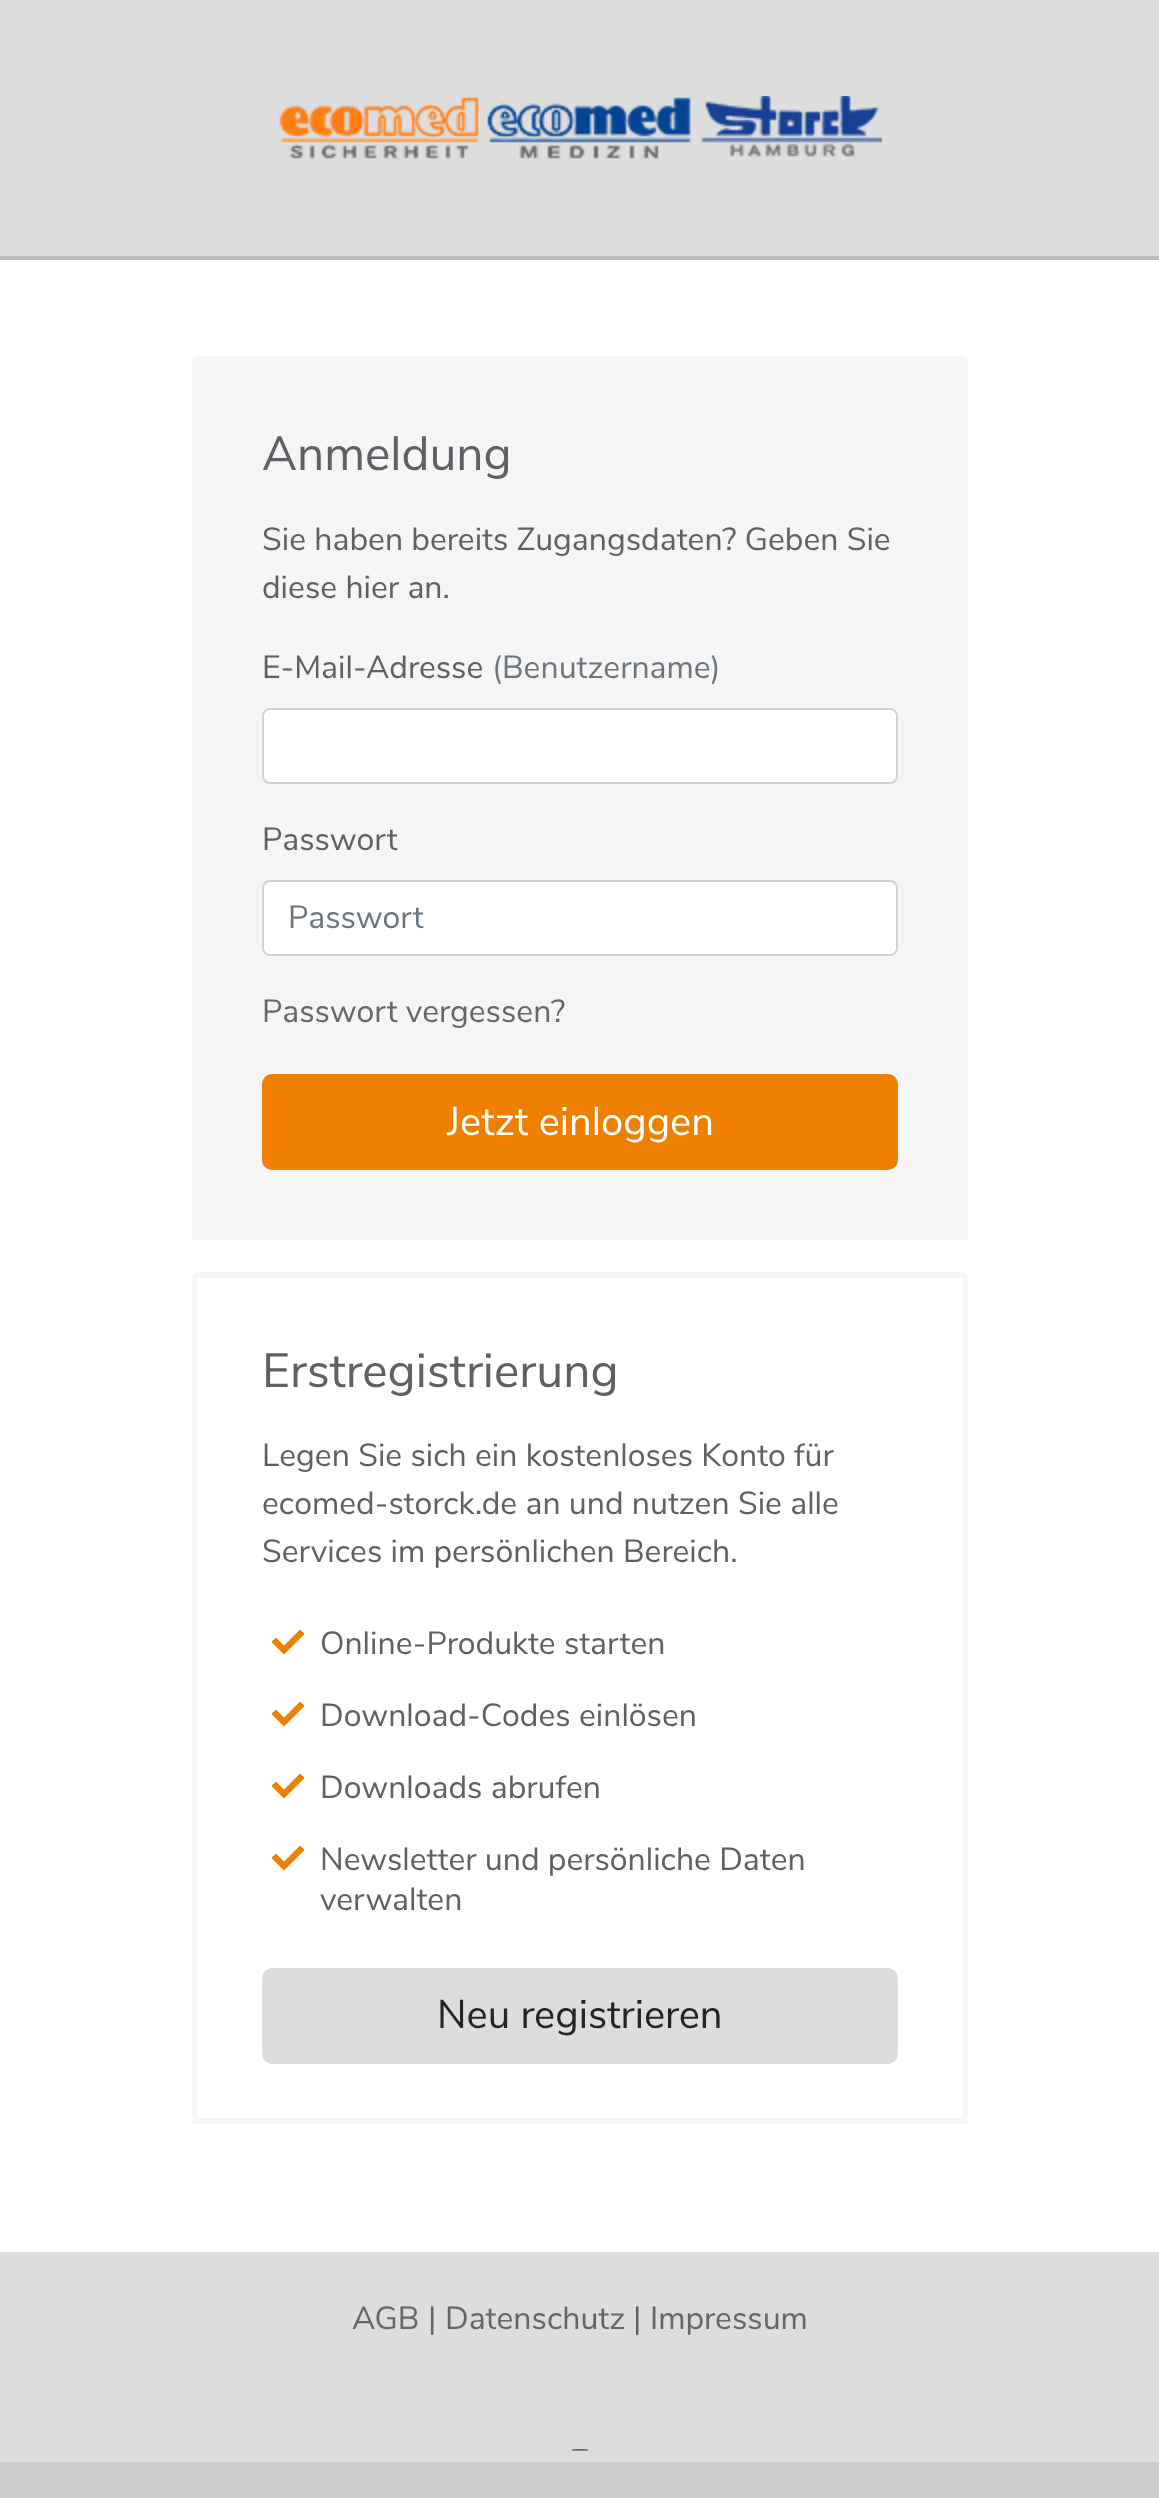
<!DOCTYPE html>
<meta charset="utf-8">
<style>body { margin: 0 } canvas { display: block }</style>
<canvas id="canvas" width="1159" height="2498"></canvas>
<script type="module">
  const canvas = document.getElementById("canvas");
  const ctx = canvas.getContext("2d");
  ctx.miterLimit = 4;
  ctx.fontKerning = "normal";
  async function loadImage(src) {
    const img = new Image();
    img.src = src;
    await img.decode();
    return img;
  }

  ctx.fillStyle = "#cccccc";
  ctx.fillRect(0, 0, 1159, 2498);
  ctx.fillStyle = "#dddddd";
  ctx.fillRect(0, 0, 1159, 256);
  ctx.fillStyle = "#bbbbbb";
  ctx.fillRect(0, 256, 1159, 4);
  ctx.drawImage(await loadImage("img1.png"), 279, 96, 603, 63);
  ctx.fillStyle = "#ffffff";
  ctx.fillRect(0, 260, 1159, 1992);
  ctx.fillStyle = "#f5f5f5";
  ctx.beginPath();
  ctx.roundRect(192, 356, 776, 884, [6, 6, 0, 0]);
  ctx.fill();
  ctx.font = "48px Nunito Sans";
  ctx.fillStyle = "#5d6166";
  ctx.fillText("Anmeldung", 262, 470);
  ctx.font = "32px Nunito Sans";
  ctx.fillText("Sie haben bereits Zugangsdaten? Geben Sie", 262, 550);
  ctx.fillText("diese hier an.", 262, 598);
  ctx.fillText("E-Mail-Adresse", 262, 678);
  ctx.fillStyle = "#6c757d";
  ctx.fillText("(Benutzername)", 492, 678);
  ctx.fillStyle = "#ffffff";
  ctx.beginPath();
  ctx.roundRect(263, 709, 634, 74, 7);
  ctx.fill();
  ctx.strokeStyle = "#ced4da";
  ctx.lineWidth = 2;
  ctx.stroke();
  ctx.fillStyle = "#5d6166";
  ctx.fillText("Passwort", 262, 850);
  ctx.fillStyle = "#ffffff";
  ctx.beginPath();
  ctx.roundRect(263, 881, 634, 74, 7);
  ctx.fill();
  ctx.stroke();
  ctx.fillStyle = "#6c757d";
  ctx.fillText("Passwort", 288, 928);
  ctx.fillStyle = "#666666";
  ctx.fillText("Passwort vergessen?", 262, 1022);
  ctx.fillStyle = "#ef7f01";
  ctx.beginPath();
  ctx.roundRect(263, 1075, 634, 94, 9);
  ctx.fill();
  ctx.strokeStyle = "#ef7f01";
  ctx.stroke();
  ctx.font = "40px Nunito Sans";
  ctx.fillStyle = "#ffffff";
  ctx.fillText("Jetzt einloggen", 447, 1135);
  ctx.beginPath();
  ctx.roundRect(195, 1275, 770, 846, [3, 3, 0, 0]);
  ctx.strokeStyle = "#f5f5f5";
  ctx.lineWidth = 6;
  ctx.stroke();
  ctx.font = "48px Nunito Sans";
  ctx.fillStyle = "#5d6166";
  ctx.fillText("Erstregistrierung", 262, 1387);
  ctx.font = "32px Nunito Sans";
  ctx.fillText("Legen Sie sich ein kostenloses Konto für", 262, 1466);
  ctx.fillText("ecomed-storck.de an und nutzen Sie alle", 262, 1514);
  ctx.fillText("Services im persönlichen Bereich.", 262, 1562);
  ctx.drawImage(await loadImage("img2.png"), 272, 1630, 32, 24);
  ctx.fillText("Online-Produkte starten", 320, 1654);
  ctx.drawImage(await loadImage("img2.png"), 272, 1702, 32, 24);
  ctx.fillText("Download-Codes einlösen", 320, 1726);
  ctx.drawImage(await loadImage("img2.png"), 272, 1774, 32, 24);
  ctx.fillText("Downloads abrufen", 320, 1798);
  ctx.drawImage(await loadImage("img2.png"), 272, 1846, 32, 24);
  ctx.fillText("Newsletter und persönliche Daten", 320, 1870);
  ctx.fillText("verwalten", 320, 1910);
  ctx.fillStyle = "#dddddd";
  ctx.beginPath();
  ctx.roundRect(263, 1969, 634, 94, 9);
  ctx.fill();
  ctx.strokeStyle = "#dddddd";
  ctx.lineWidth = 2;
  ctx.stroke();
  ctx.font = "40px Nunito Sans";
  ctx.fillStyle = "#212529";
  ctx.fillText("Neu registrieren", 437, 2028);
  ctx.fillStyle = "#dddddd";
  ctx.fillRect(0, 2252, 1159, 210);
  ctx.font = "32px Nunito Sans";
  ctx.fillStyle = "#666666";
  ctx.fillText("AGB", 352, 2329);
  ctx.fillStyle = "#5d6166";
  ctx.fillText("|", 428, 2329);
  ctx.fillStyle = "#666666";
  ctx.fillText("Datenschutz", 445, 2329);
  ctx.fillStyle = "#5d6166";
  ctx.fillText("|", 633, 2329);
  ctx.fillStyle = "#666666";
  ctx.fillText("Impressum", 650, 2329);
  ctx.fillText("_", 572, 2449);
</script>
